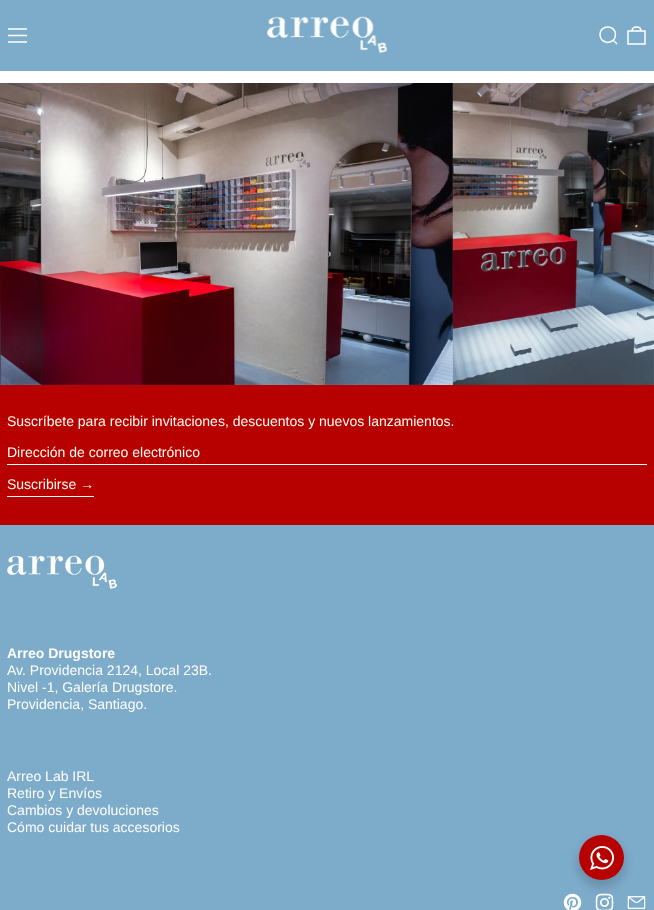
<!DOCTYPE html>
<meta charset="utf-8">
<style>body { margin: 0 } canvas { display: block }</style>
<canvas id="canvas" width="654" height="910"></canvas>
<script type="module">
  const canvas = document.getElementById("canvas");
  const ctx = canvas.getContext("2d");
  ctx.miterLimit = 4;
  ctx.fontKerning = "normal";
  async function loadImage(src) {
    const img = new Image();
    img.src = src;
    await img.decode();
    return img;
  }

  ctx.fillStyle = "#ffffff";
  ctx.fillRect(0, 0, 654, 910);
  ctx.fillStyle = "#7dabca";
  ctx.fillRect(0, 0, 654, 71);
  ctx.beginPath();
  ctx.moveTo(8, 29);
  ctx.lineTo(27, 29);
  ctx.moveTo(8, 35.5);
  ctx.lineTo(27, 35.5);
  ctx.moveTo(8, 42);
  ctx.lineTo(27, 42);
  ctx.strokeStyle = "#ffffff";
  ctx.lineWidth = 1.5;
  ctx.stroke();
  ctx.drawImage(await loadImage("img1.png"), 267, 16, 120, 37);
  ctx.beginPath();
  ctx.moveTo(600, 34.5);
  ctx.bezierCurveTo(600, 45, 615.5, 45, 615.5, 34.5);
  ctx.bezierCurveTo(615.5, 24.5, 600, 24.5, 600, 34.5);
  ctx.closePath();
  ctx.moveTo(613, 40);
  ctx.lineTo(617, 44);
  ctx.moveTo(628, 31);
  ctx.lineTo(645, 31);
  ctx.lineTo(645, 44);
  ctx.lineTo(628, 44);
  ctx.closePath();
  ctx.moveTo(641, 31);
  ctx.bezierCurveTo(641, 25.5, 632, 25.5, 632, 31);
  ctx.stroke();
  ctx.drawImage(await loadImage("img2.png"), 0, 83, 654, 302);
  ctx.fillStyle = "#b70000";
  ctx.fillRect(0, 385, 654, 140);
  ctx.font = "14px Liberation Sans";
  ctx.fillStyle = "#fffdf2";
  ctx.fillText("Suscríbete para recibir invitaciones, descuentos y nuevos lanzamientos.", 7, 426);
  ctx.fillRect(7, 464, 640, 1);
  ctx.fillText("Dirección de correo electrónico", 7, 457);
  ctx.fillRect(7, 496, 87, 1);
  ctx.fillText("Suscribirse →", 7, 489);
  ctx.fillStyle = "#7dabca";
  ctx.fillRect(0, 525, 654, 385);
  ctx.drawImage(await loadImage("img3.png"), 7, 555, 110, 34);
  ctx.font = "bold 14px Liberation Sans";
  ctx.fillStyle = "#ffffff";
  ctx.fillText("Arreo Drugstore", 7, 658);
  ctx.font = "14px Liberation Sans";
  ctx.fillText("Av. Providencia 2124, Local 23B.", 7, 675);
  ctx.fillText("Nivel -1, Galería Drugstore.", 7, 692);
  ctx.fillText("Providencia, Santiago.", 7, 709);
  ctx.fillText("Arreo Lab IRL", 7, 781);
  ctx.fillText("Retiro y Envíos", 7, 798);
  ctx.fillText("Cambios y devoluciones", 7, 815);
  ctx.fillText("Cómo cuidar tus accesorios", 7, 832);
  ctx.drawImage(await loadImage("img4.png"), 563, 893, 19, 17);
  ctx.drawImage(await loadImage("img5.png"), 595, 893, 19, 17);
  ctx.drawImage(await loadImage("img6.png"), 627, 896, 19, 13);
  ctx.fillStyle = "rgba(0, 0, 0, 0.14)";
  ctx.filter = "blur(4px)";
  ctx.beginPath();
  ctx.roundRect(577, 839, 49, 49, 24.5);
  ctx.fill();
  ctx.filter = "none";
  ctx.fillStyle = "#b70000";
  ctx.beginPath();
  ctx.arc(601.5, 857.5, 22.5, 0, Math.PI * 2);
  ctx.fill();
  ctx.drawImage(await loadImage("img7.png"), 590, 846, 24, 24);
</script>
